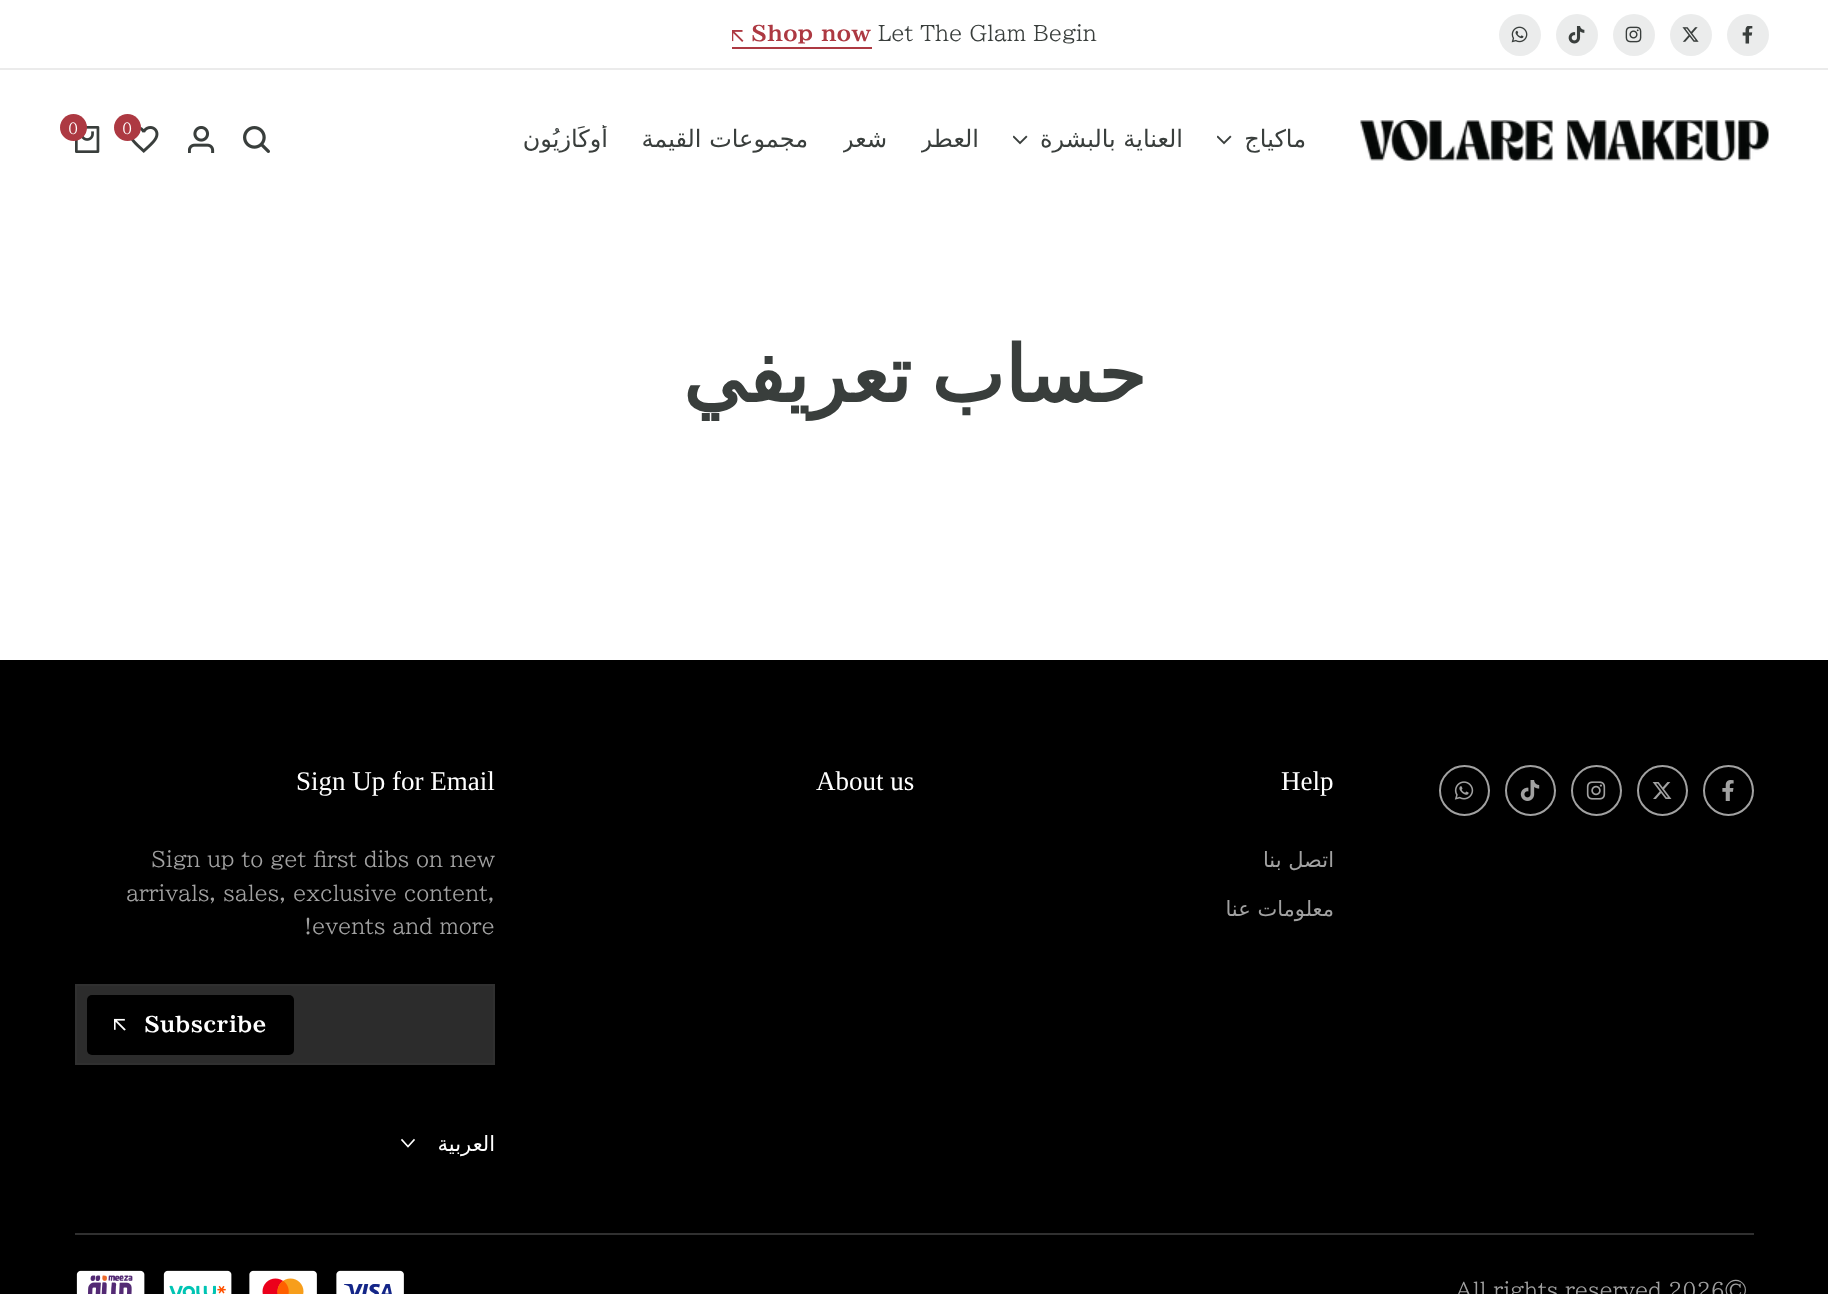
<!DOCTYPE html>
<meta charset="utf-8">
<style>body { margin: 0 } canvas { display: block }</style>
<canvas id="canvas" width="1828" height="1294"></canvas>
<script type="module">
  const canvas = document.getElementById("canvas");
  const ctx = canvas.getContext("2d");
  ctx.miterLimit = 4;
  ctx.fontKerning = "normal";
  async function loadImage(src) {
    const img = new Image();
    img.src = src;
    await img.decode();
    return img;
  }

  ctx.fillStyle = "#ffffff";
  ctx.fillRect(0, 0, 1828, 1294);
  ctx.fillStyle = "#ebebeb";
  ctx.fillRect(0, 68, 1828, 2);
  ctx.fillStyle = "#ad3942";
  ctx.fillRect(732, 47, 140, 2);
  ctx.drawImage(await loadImage("img1.png"), 732, 30, 12, 12);
  ctx.font = "bold 21px BIZ UDPMincho";
  ctx.fillText("Shop now", 751, 41);
  ctx.font = "21px BIZ UDPMincho";
  ctx.fillStyle = "#393e3c";
  ctx.fillText("Let The Glam Begin", 878, 41);
  ctx.fillStyle = "#ebecec";
  ctx.beginPath();
  ctx.arc(1520, 35, 21, 0, Math.PI * 2);
  ctx.fill();
  ctx.drawImage(await loadImage("img2.png"), 1511, 26, 17, 17);
  ctx.beginPath();
  ctx.arc(1577, 35, 21, 0, Math.PI * 2);
  ctx.fill();
  ctx.drawImage(await loadImage("img3.png"), 1568, 26, 17, 18);
  ctx.beginPath();
  ctx.arc(1634, 35, 21, 0, Math.PI * 2);
  ctx.fill();
  ctx.drawImage(await loadImage("img4.png"), 1625, 26, 17, 17);
  ctx.beginPath();
  ctx.arc(1691, 35, 21, 0, Math.PI * 2);
  ctx.fill();
  ctx.drawImage(await loadImage("img5.png"), 1682, 27, 17, 15);
  ctx.beginPath();
  ctx.arc(1748, 35, 21, 0, Math.PI * 2);
  ctx.fill();
  ctx.drawImage(await loadImage("img6.png"), 1742, 26, 11, 18);
  ctx.drawImage(await loadImage("img7.png"), 75, 126, 25, 27);
  ctx.fillStyle = "#ad3942";
  ctx.beginPath();
  ctx.arc(73.5, 127.5, 13.5, 0, Math.PI * 2);
  ctx.fill();
  ctx.font = "15px BIZ UDPMincho";
  ctx.fillStyle = "#ffffff";
  ctx.fillText("0", 68, 134);
  ctx.drawImage(await loadImage("img8.png"), 131, 126, 28, 27);
  ctx.fillStyle = "#ad3942";
  ctx.beginPath();
  ctx.arc(127.5, 127.5, 13.5, 0, Math.PI * 2);
  ctx.fill();
  ctx.fillStyle = "#ffffff";
  ctx.fillText("0", 122, 134);
  ctx.drawImage(await loadImage("img9.png"), 188, 126, 27, 27);
  ctx.drawImage(await loadImage("img10.png"), 243, 126, 27, 27);
  ctx.save();
  ctx.beginPath();
  ctx.rect(524, 125, 84, 28);
  ctx.clip();
  ctx.direction = "rtl";
  ctx.font = "24px DejaVu Sans";
  ctx.fillStyle = "#393e3c";
  ctx.fillText("أُوكَازيُون", 608, 147);
  ctx.restore();
  ctx.direction = "rtl";
  ctx.font = "24px DejaVu Sans";
  ctx.fillStyle = "#393e3c";
  ctx.fillText("مجموعات القيمة", 808, 147);
  ctx.save();
  ctx.beginPath();
  ctx.rect(843, 125, 45, 28);
  ctx.clip();
  ctx.fillText("شعر", 887, 147);
  ctx.restore();
  ctx.save();
  ctx.beginPath();
  ctx.rect(921, 125, 59, 28);
  ctx.clip();
  ctx.fillText("العطر", 979, 147);
  ctx.restore();
  ctx.drawImage(await loadImage("img11.png"), 1013, 135, 15, 10);
  ctx.fillText("العناية بالبشرة", 1183, 147);
  ctx.drawImage(await loadImage("img11.png"), 1217, 135, 15, 10);
  ctx.fillText("ماكياج", 1306, 147);
  ctx.drawImage(await loadImage("img12.png"), 1360, 120, 409, 41);
  ctx.wordSpacing = "-5px";
  ctx.font = "bold 78px DejaVu Sans";
  ctx.fillText("حساب تعريفي", 1146, 402);
  ctx.fillStyle = "#000000";
  ctx.fillRect(0, 660, 1828, 634);
  ctx.wordSpacing = "0px";
  ctx.direction = "ltr";
  ctx.font = "27px Liberation Serif";
  ctx.fillStyle = "#ffffff";
  ctx.fillText("Sign Up for Email", 296, 790);
  ctx.font = "21px BIZ UDPMincho";
  ctx.fillStyle = "#a1a1a1";
  ctx.fillText("Sign up to get first dibs on new", 151, 867);
  ctx.fillText("arrivals, sales, exclusive content,", 126, 901);
  ctx.fillText("!events and more", 304, 934);
  ctx.fillStyle = "#2c2c2c";
  ctx.beginPath();
  ctx.rect(76, 985, 418, 79);
  ctx.fill();
  ctx.strokeStyle = "#303030";
  ctx.lineWidth = 2;
  ctx.stroke();
  ctx.fillStyle = "#000000";
  ctx.beginPath();
  ctx.roundRect(87, 995, 207, 60, 5);
  ctx.fill();
  ctx.drawImage(await loadImage("img13.png"), 114, 1018, 12, 13);
  ctx.font = "bold 21px BIZ UDPMincho";
  ctx.fillStyle = "#ffffff";
  ctx.fillText("Subscribe", 144, 1032);
  ctx.beginPath();
  ctx.moveTo(414, 1140);
  ctx.lineTo(408, 1146.5);
  ctx.lineTo(402, 1140);
  ctx.strokeStyle = "#ffffff";
  ctx.lineWidth = 1.6;
  ctx.lineCap = "square";
  ctx.stroke();
  ctx.direction = "rtl";
  ctx.font = "21px DejaVu Sans";
  ctx.fillText("العربية", 495, 1151);
  ctx.direction = "ltr";
  ctx.font = "27px Liberation Serif";
  ctx.fillText("About us", 816, 790);
  ctx.fillText("Help", 1281, 790);
  ctx.direction = "rtl";
  ctx.font = "21px DejaVu Sans";
  ctx.fillStyle = "#a1a1a1";
  ctx.fillText("اتصل بنا", 1334, 867);
  ctx.fillText("معلومات عنا", 1334, 916);
  ctx.beginPath();
  ctx.arc(1464.5, 790.5, 24.5, 0, Math.PI * 2);
  ctx.strokeStyle = "#a1a1a1";
  ctx.lineWidth = 2;
  ctx.stroke();
  ctx.drawImage(await loadImage("img14.png"), 1454, 781, 20, 19);
  ctx.beginPath();
  ctx.arc(1530.5, 790.5, 24.5, 0, Math.PI * 2);
  ctx.stroke();
  ctx.drawImage(await loadImage("img15.png"), 1520, 780, 20, 21);
  ctx.beginPath();
  ctx.arc(1596.5, 790.5, 24.5, 0, Math.PI * 2);
  ctx.stroke();
  ctx.drawImage(await loadImage("img16.png"), 1586, 781, 20, 19);
  ctx.beginPath();
  ctx.arc(1662.5, 790.5, 24.5, 0, Math.PI * 2);
  ctx.stroke();
  ctx.drawImage(await loadImage("img17.png"), 1652, 782, 20, 17);
  ctx.beginPath();
  ctx.arc(1728.5, 790.5, 24.5, 0, Math.PI * 2);
  ctx.stroke();
  ctx.drawImage(await loadImage("img18.png"), 1722, 780, 12, 21);
  ctx.fillStyle = "#303030";
  ctx.fillRect(75, 1233, 1679, 2);
  ctx.drawImage(await loadImage("img19.png"), 76, 1270, 69, 24);
  ctx.drawImage(await loadImage("img20.png"), 163, 1270, 69, 24);
  ctx.drawImage(await loadImage("img21.png"), 249, 1270, 68, 24);
  ctx.drawImage(await loadImage("img22.png"), 336, 1270, 68, 24);
  ctx.direction = "ltr";
  ctx.font = "21px BIZ UDPMincho";
  ctx.fillStyle = "#a1a1a1";
  ctx.fillText("All rights reserved", 1455, 1298);
  ctx.fillText("2026©", 1668, 1298);
</script>
